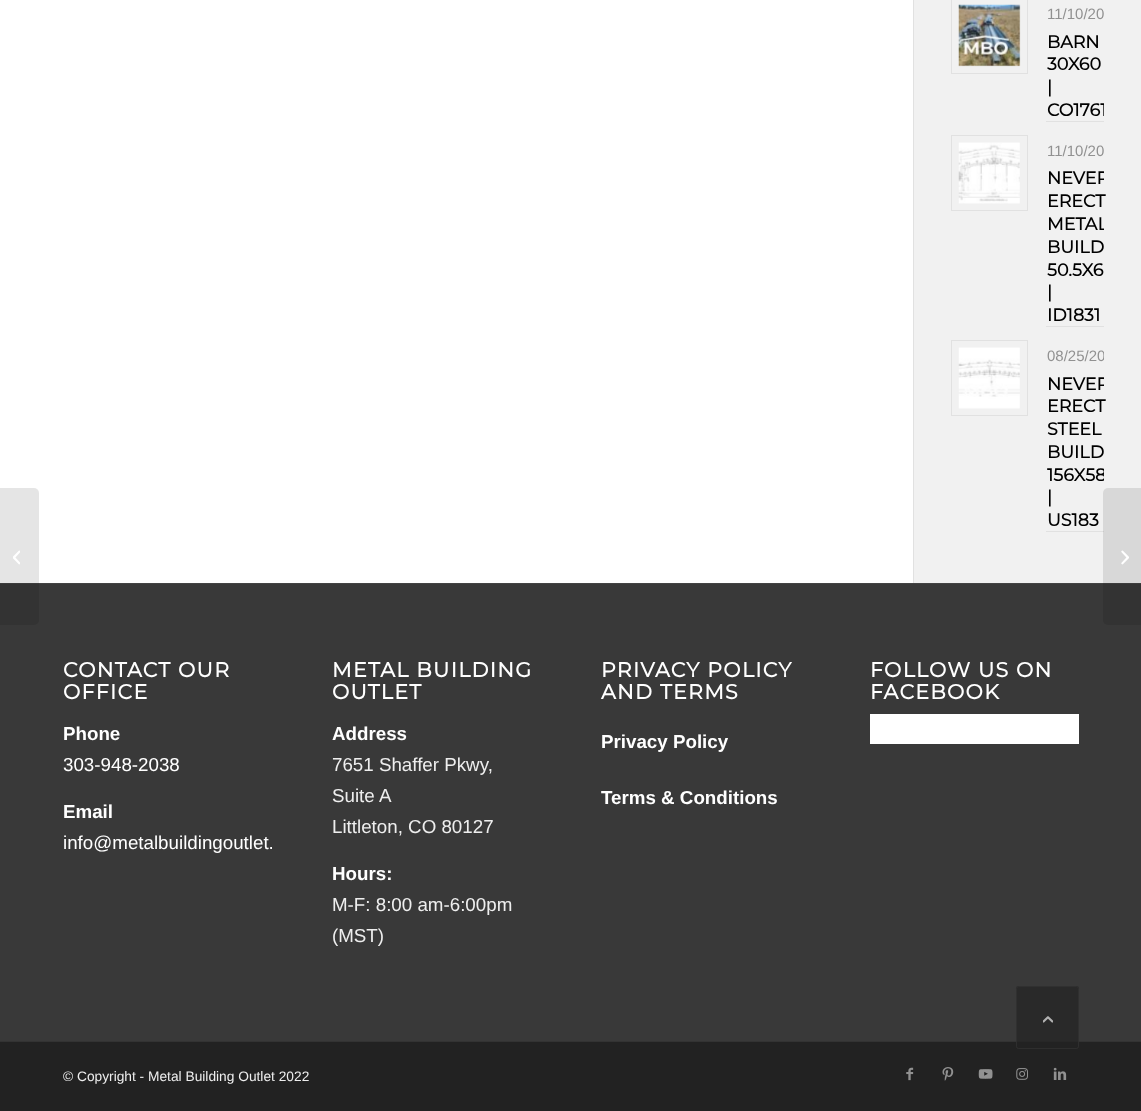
async function draw(canvas) {
  canvas.width = 1141;
  canvas.height = 1111;
  const ctx = canvas.getContext('2d');
  ctx.miterLimit = 4;
  ctx.fontKerning = 'normal';
  function label(s, x, y, font, color) {
    ctx.font = font;
    ctx.fillStyle = color;
    ctx.fillText(s, x, y);
  }
  function rect(x, y, w, h, color) {
    ctx.fillStyle = color;
    ctx.fillRect(x, y, w, h);
  }
  function roundedRect(x, y, w, h, r, color) {
    ctx.fillStyle = color;
    ctx.beginPath();
    ctx.roundRect(x, y, w, h, r);
    ctx.fill();
  }
  async function image(src, x, y, w, h) {
    const img = new Image();
    img.src = src;
    await img.decode();
    ctx.drawImage(img, x, y, w, h);
  }

  rect(0, 0, 1141, 1111, '#fff');
  rect(0, 584, 1141, 457, '#393939');
  rect(0, 583, 1141, 1, '#444');
  ctx.fillStyle = '#0000001a';
  ctx.beginPath();
  ctx.roundRect(0, 488, 39, 137, [0, 5, 5, 0]);
  ctx.fill();
  await image('assets/img1.png', 13, 550, 7, 15);
  rect(914, 0, 227, 583, '#f1f1f1');
  rect(913, 0, 1, 583, '#e1e1e1');
  ctx.strokeStyle = '#e1e1e1';
  ctx.strokeRect(951.5, -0.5, 76, 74);
  await image('assets/img2.png', 958, 4, 63, 63);
  rect(1046, 121, 58, 1, '#e1e1e1');
  label('11/10/20', 1047, 19, '15px Liberation Sans', '#919191');
  label('BARN', 1047, 48, 'bold 17.5px Montserrat', '#000');
  label('30X60', 1047, 70, 'bold 17.5px Montserrat', '#000');
  label('|', 1047, 93, 'bold 17.5px Montserrat', '#000');
  ctx.save();
  ctx.beginPath();
  ctx.rect(1046, 0, 58, 121);
  ctx.clip();
  label('CO1761', 1047, 116, 'bold 17.5px Montserrat', '#000');
  ctx.restore();
  ctx.strokeRect(951.5, 135.5, 76, 75);
  await image('assets/img3.png', 958, 142, 62, 62);
  rect(1046, 326, 58, 1, '#e1e1e1');
  label('11/10/20', 1047, 156, '15px Liberation Sans', '#919191');
  ctx.save();
  ctx.beginPath();
  ctx.rect(1046, 135, 58, 191);
  ctx.clip();
  label('NEVER', 1047, 184, 'bold 17.5px Montserrat', '#000');
  ctx.restore();
  label('ERECT', 1047, 207, 'bold 17.5px Montserrat', '#000');
  ctx.save();
  ctx.beginPath();
  ctx.rect(1046, 135, 58, 191);
  ctx.clip();
  label('METAL', 1047, 230, 'bold 17.5px Montserrat', '#000');
  ctx.restore();
  label('BUILD', 1047, 253, 'bold 17.5px Montserrat', '#000');
  label('50.5X6', 1047, 276, 'bold 17.5px Montserrat', '#000');
  label('|', 1047, 298, 'bold 17.5px Montserrat', '#000');
  label('ID1831', 1047, 321, 'bold 17.5px Montserrat', '#000');
  ctx.strokeRect(951.5, 340.5, 76, 75);
  await image('assets/img4.png', 958, 347, 62, 62);
  rect(1046, 531, 58, 1, '#e1e1e1');
  ctx.save();
  ctx.beginPath();
  ctx.rect(1046, 340, 58, 191);
  ctx.clip();
  label('08/25/20', 1047, 361, '15px Liberation Sans', '#919191');
  label('NEVER', 1047, 390, 'bold 17.5px Montserrat', '#000');
  ctx.restore();
  label('ERECT', 1047, 412, 'bold 17.5px Montserrat', '#000');
  label('STEEL', 1047, 435, 'bold 17.5px Montserrat', '#000');
  label('BUILD', 1047, 458, 'bold 17.5px Montserrat', '#000');
  ctx.save();
  ctx.beginPath();
  ctx.rect(1046, 340, 58, 191);
  ctx.clip();
  label('156X58', 1047, 481, 'bold 17.5px Montserrat', '#000');
  ctx.restore();
  label('|', 1047, 503, 'bold 17.5px Montserrat', '#000');
  label('US183', 1047, 526, 'bold 17.5px Montserrat', '#000');
  ctx.letterSpacing = '1.25px';
  label('CONTACT OUR', 63, 677, 'bold 20.6px Montserrat', '#fff');
  label('OFFICE', 63, 699, 'bold 20.6px Montserrat', '#fff');
  ctx.letterSpacing = '0px';
  label('Phone', 63, 740, 'bold 18.75px Liberation Sans', '#fff');
  label('303-948-2038', 63, 771, '18.75px Liberation Sans', '#fff');
  label('Email', 63, 818, 'bold 18.75px Liberation Sans', '#fff');
  label('info@metalbuildingoutlet.', 63, 849, '18.75px Liberation Sans', '#fff');
  ctx.letterSpacing = '1.25px';
  label('METAL BUILDING', 332, 677, 'bold 20.6px Montserrat', '#fff');
  label('OUTLET', 332, 699, 'bold 20.6px Montserrat', '#fff');
  ctx.letterSpacing = '0px';
  label('Address', 332, 740, 'bold 18.75px Liberation Sans', '#fff');
  label('7651 Shaffer Pkwy,', 332, 771, '18.75px Liberation Sans', '#eee');
  label('Suite A', 332, 802, '18.75px Liberation Sans', '#eee');
  label('Littleton, CO 80127', 332, 833, '18.75px Liberation Sans', '#eee');
  label('Hours:', 332, 880, 'bold 18.75px Liberation Sans', '#fff');
  label('M-F: 8:00 am-6:00pm', 332, 911, '18.75px Liberation Sans', '#eee');
  label('(MST)', 332, 942, '18.75px Liberation Sans', '#eee');
  ctx.letterSpacing = '1.25px';
  label('PRIVACY POLICY', 601, 677, 'bold 20.6px Montserrat', '#fff');
  label('AND TERMS', 601, 699, 'bold 20.6px Montserrat', '#fff');
  ctx.letterSpacing = '0px';
  label('Privacy Policy', 601, 748, 'bold 18.75px Liberation Sans', '#fff');
  label('Terms & Conditions', 601, 804, 'bold 18.75px Liberation Sans', '#fff');
  ctx.letterSpacing = '1.25px';
  label('FOLLOW US ON', 870, 677, 'bold 20.6px Montserrat', '#fff');
  label('FACEBOOK', 870, 699, 'bold 20.6px Montserrat', '#fff');
  rect(870, 714, 209, 30, '#fff');
  rect(0, 1042, 1141, 69, '#222');
  rect(0, 1041, 1141, 1, '#333');
  ctx.letterSpacing = '0px';
  label('© Copyright - Metal Building Outlet 2022', 63, 1081, '13.75px Liberation Sans', '#eee');
  await image('assets/img5.png', 906, 1067, 8, 14);
  await image('assets/img6.png', 942, 1067, 12, 14);
  await image('assets/img7.png', 978, 1069, 15, 10);
  await image('assets/img8.png', 1016, 1068, 12, 12);
  await image('assets/img9.png', 1053, 1067, 14, 13);
  ctx.fillStyle = '#0000001a';
  ctx.beginPath();
  ctx.roundRect(1103, 488, 38, 137, [5, 0, 0, 5]);
  ctx.fill();
  await image('assets/img10.png', 1121, 550, 8, 15);
  roundedRect(1016, 986, 63, 63, 2.5, '#222222b3');
  ctx.beginPath();
  ctx.roundRect(1016.5, 986.5, 62, 62, 2);
  ctx.strokeStyle = '#333333b3';
  ctx.stroke();
  await image('assets/img11.png', 1043, 1016, 10, 7);
}

draw(document.querySelector('canvas'));
